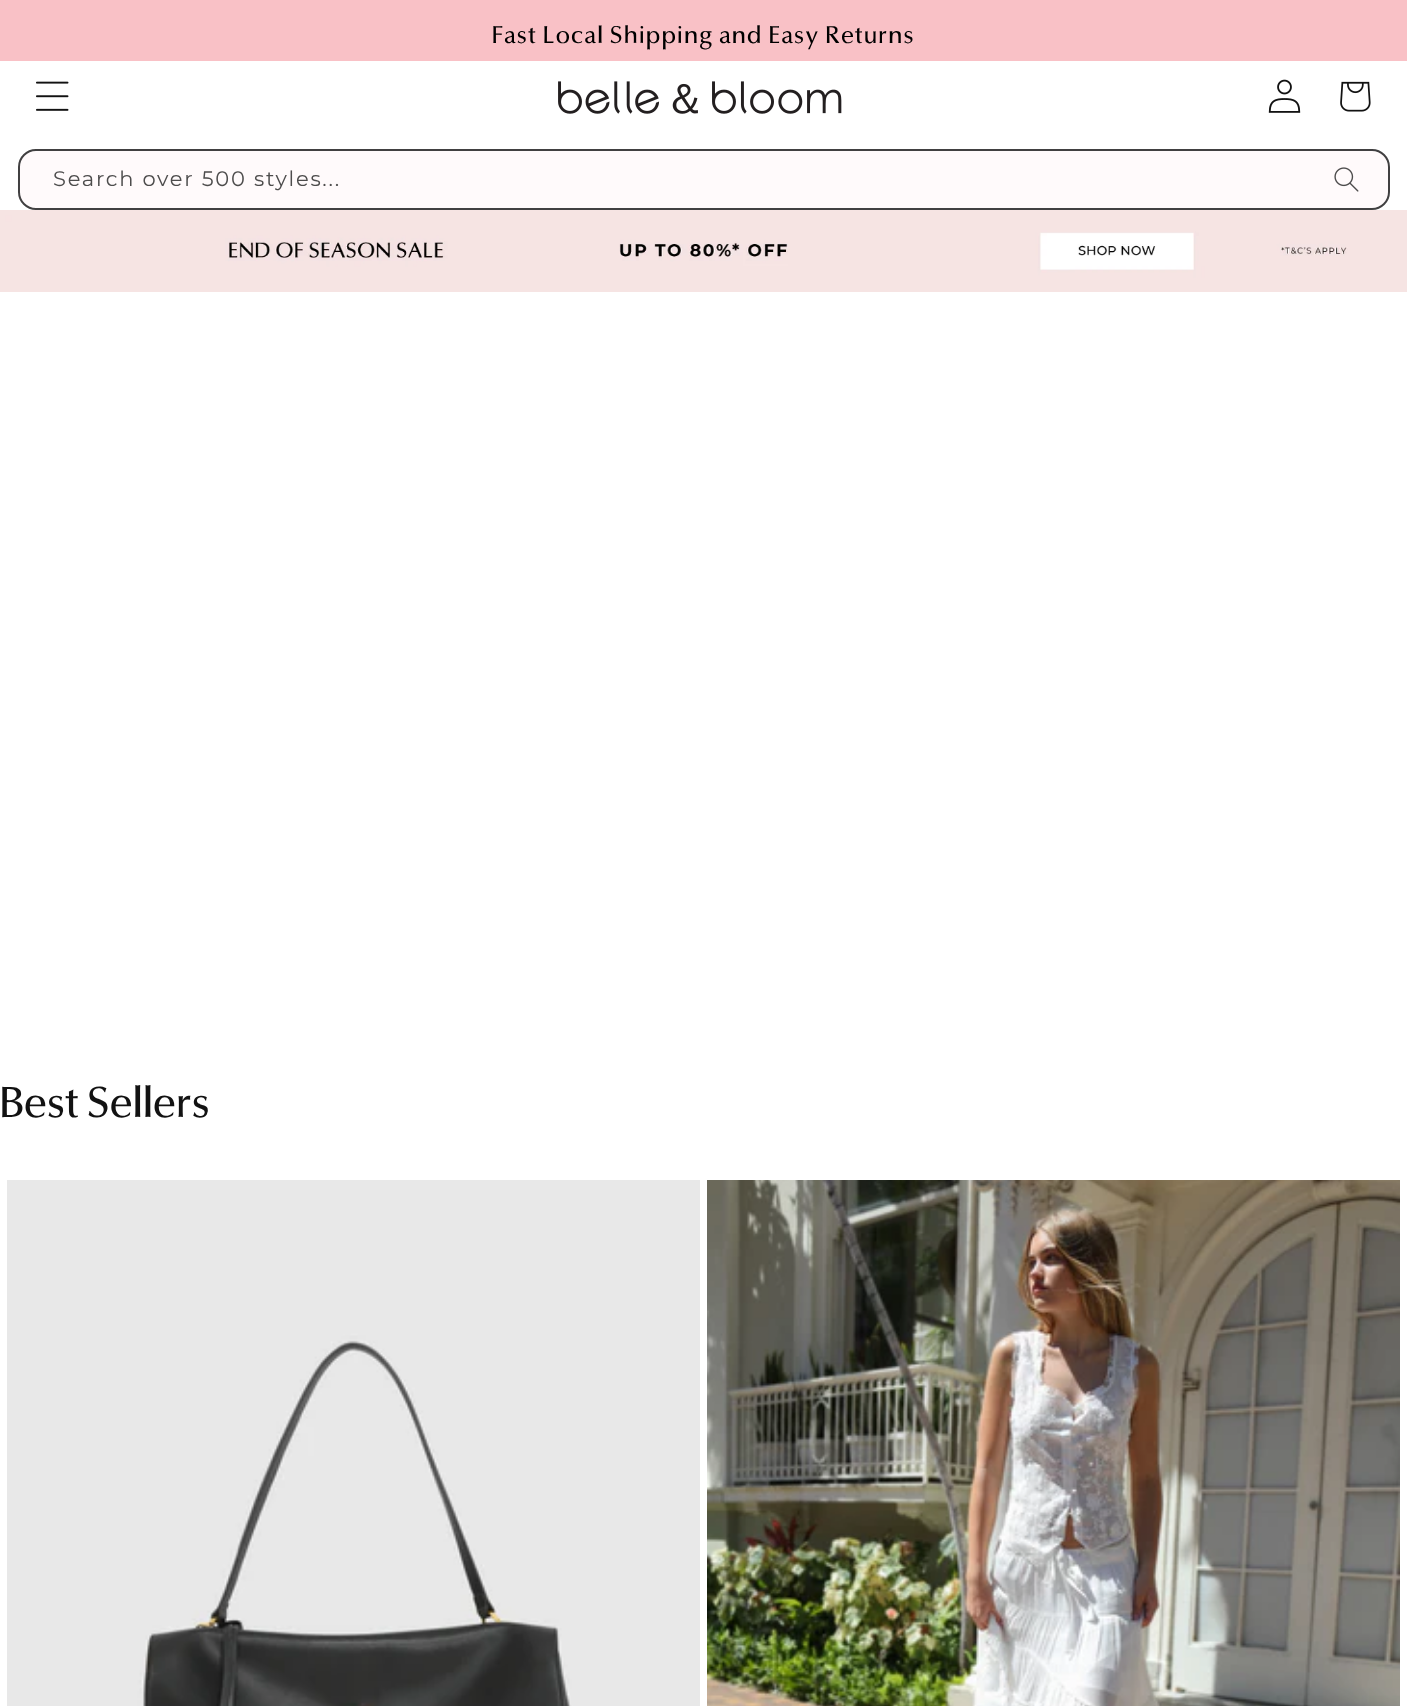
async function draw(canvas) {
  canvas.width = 1407;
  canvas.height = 1706;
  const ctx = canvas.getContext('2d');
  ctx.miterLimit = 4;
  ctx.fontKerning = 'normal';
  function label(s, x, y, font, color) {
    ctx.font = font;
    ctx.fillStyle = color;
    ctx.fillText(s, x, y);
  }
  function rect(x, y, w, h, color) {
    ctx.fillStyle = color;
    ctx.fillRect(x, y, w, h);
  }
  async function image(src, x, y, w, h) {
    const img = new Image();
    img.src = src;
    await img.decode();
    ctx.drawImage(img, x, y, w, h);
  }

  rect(0, 0, 1407, 1706, '#fff');
  rect(0, 0, 1407, 61, '#f9c1c6');
  ctx.letterSpacing = '1.75px';
  label('Fast Local Shipping and Easy Returns', 492, 43, '500 24.5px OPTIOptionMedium', '#000');
  await image('assets/img1.png', 36, 81, 33, 30);
  await image('assets/img2.png', 558, 81, 284, 33);
  await image('assets/img3.png', 1268, 79, 33, 34);
  await image('assets/img4.png', 1340, 81, 31, 31);
  ctx.fillStyle = '#fffafb';
  ctx.beginPath();
  ctx.roundRect(19, 150, 1370, 59, 17);
  ctx.fill();
  ctx.strokeStyle = '#414041';
  ctx.lineWidth = 2;
  ctx.stroke();
  label('Search over 500 styles...', 53, 186, '21px Montserrat', '#4d4c4c');
  await image('assets/img5.png', 1334, 167, 25, 25);
  await image('assets/img6.png', 0, 210, 1407, 82);
  ctx.letterSpacing = '1px';
  label('Best Sellers', 0, 1117, '500 43.75px OPTIOptionMedium', '#121212');
  await image('assets/img7.png', 7, 1180, 693, 526);
  await image('assets/img8.png', 707, 1180, 693, 526);
}

draw(document.querySelector('canvas'));
